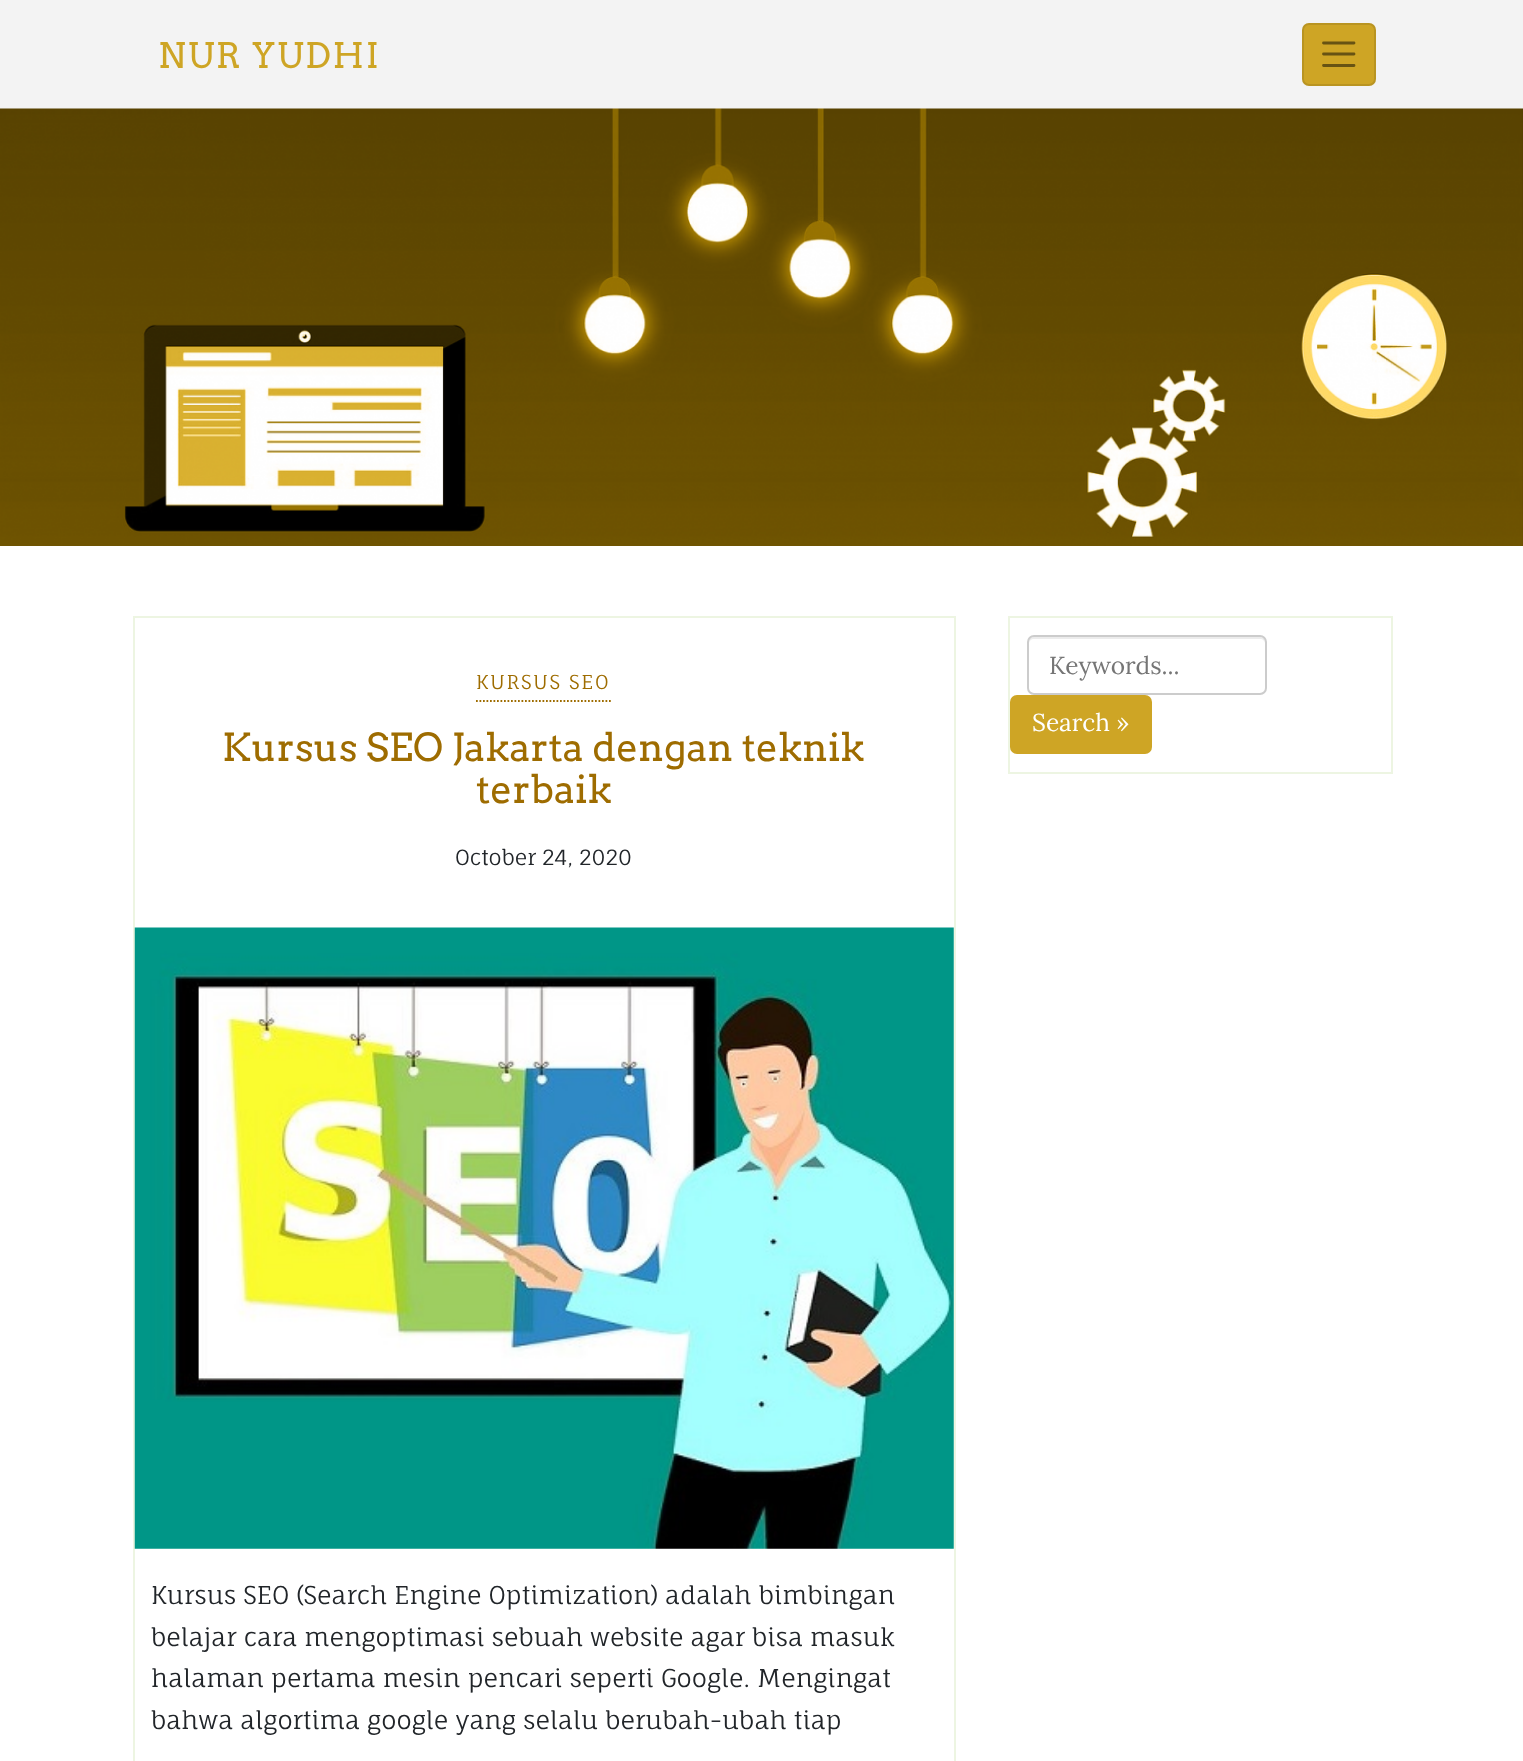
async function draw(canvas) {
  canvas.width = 1523;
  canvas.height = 1761;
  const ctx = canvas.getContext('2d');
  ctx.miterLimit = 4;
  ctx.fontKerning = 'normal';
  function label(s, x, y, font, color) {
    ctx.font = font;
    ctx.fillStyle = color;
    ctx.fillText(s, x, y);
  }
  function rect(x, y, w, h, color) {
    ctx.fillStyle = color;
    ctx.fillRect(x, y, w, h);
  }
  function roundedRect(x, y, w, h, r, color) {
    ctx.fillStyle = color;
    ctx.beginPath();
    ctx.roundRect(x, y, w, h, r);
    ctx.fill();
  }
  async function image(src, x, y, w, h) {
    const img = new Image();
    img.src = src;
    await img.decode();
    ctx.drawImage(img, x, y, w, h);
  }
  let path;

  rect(0, 0, 1523, 1761, '#fff');
  rect(0, 0, 1523, 109, '#f3f3f3');
  ctx.letterSpacing = '1.75px';
  label('NUR YUDHI', 158, 68, '35px Arvo', '#cea525');
  roundedRect(1302, 23, 74, 63, 7, '#cea525');
  ctx.beginPath();
  ctx.roundRect(1303, 24, 72, 61, 6);
  ctx.strokeStyle = '#0000001a';
  ctx.lineWidth = 2;
  ctx.stroke();
  path = new Path2D('M1323.5 43H1354M1323.5 54H1354M1323.5 65.5H1354');
  ctx.strokeStyle = '#675313';
  ctx.lineWidth = 2.8;
  ctx.lineCap = 'round';
  ctx.stroke(path);
  await image('assets/img1.png', 0, 108, 1523, 438);
  ctx.strokeStyle = '#edf5e2';
  ctx.lineWidth = 2;
  ctx.strokeRect(134, 617, 821, 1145);
  label('KURSUS SEO', 476, 689, '19.25px Fauna One', '#9e6c00');
  path = new Path2D('M476 701H611');
  ctx.strokeStyle = '#9e6c00';
  ctx.lineWidth = 1.8;
  ctx.lineCap = 'butt';
  ctx.setLineDash([1.75, 1.75]);
  ctx.stroke(path);
  ctx.letterSpacing = '0px';
  label('Kursus SEO Jakarta dengan teknik', 222, 761, '38.5px Arvo', '#9e6c00');
  label('terbaik', 476, 803, '38.5px Arvo', '#9e6c00');
  label('October 24, 2020', 455, 865, '21px Fauna One', '#212529');
  await image('assets/img2.png', 134, 927, 820, 622);
  label('Kursus SEO (Search Engine Optimization) adalah bimbingan', 151, 1604, '24.5px Fauna One', '#212529');
  label('belajar cara mengoptimasi sebuah website agar bisa masuk', 151, 1646, '24.5px Fauna One', '#212529');
  label('halaman pertama mesin pencari seperti Google. Mengingat', 151, 1687, '24.5px Fauna One', '#212529');
  label('bahwa algortima google yang selalu berubah-ubah tiap', 151, 1729, '24.5px Fauna One', '#212529');
  ctx.strokeStyle = '#edf5e2';
  ctx.lineWidth = 2;
  ctx.setLineDash([]);
  ctx.strokeRect(1009, 617, 383, 156);
  ctx.fillStyle = '#ececec';
  path = new Path2D('M1034 639H1260C1263 639 1265 641 1265 644C1265 641 1265 638 1261 637H1033C1029 638 1029 641 1029 644C1029 641 1031 639 1034 639Z');
  ctx.fill(path);
  ctx.beginPath();
  ctx.roundRect(1028, 636, 238, 58, 6);
  ctx.strokeStyle = '#ccc';
  ctx.stroke();
  label('Keywords...', 1049, 674, '24.5px Lora', '#757575');
  roundedRect(1010, 695, 142, 59, 7, '#cea525');
  label('Search »', 1032, 731, '24.5px Lora', '#fff');
}

draw(document.querySelector('canvas'));
